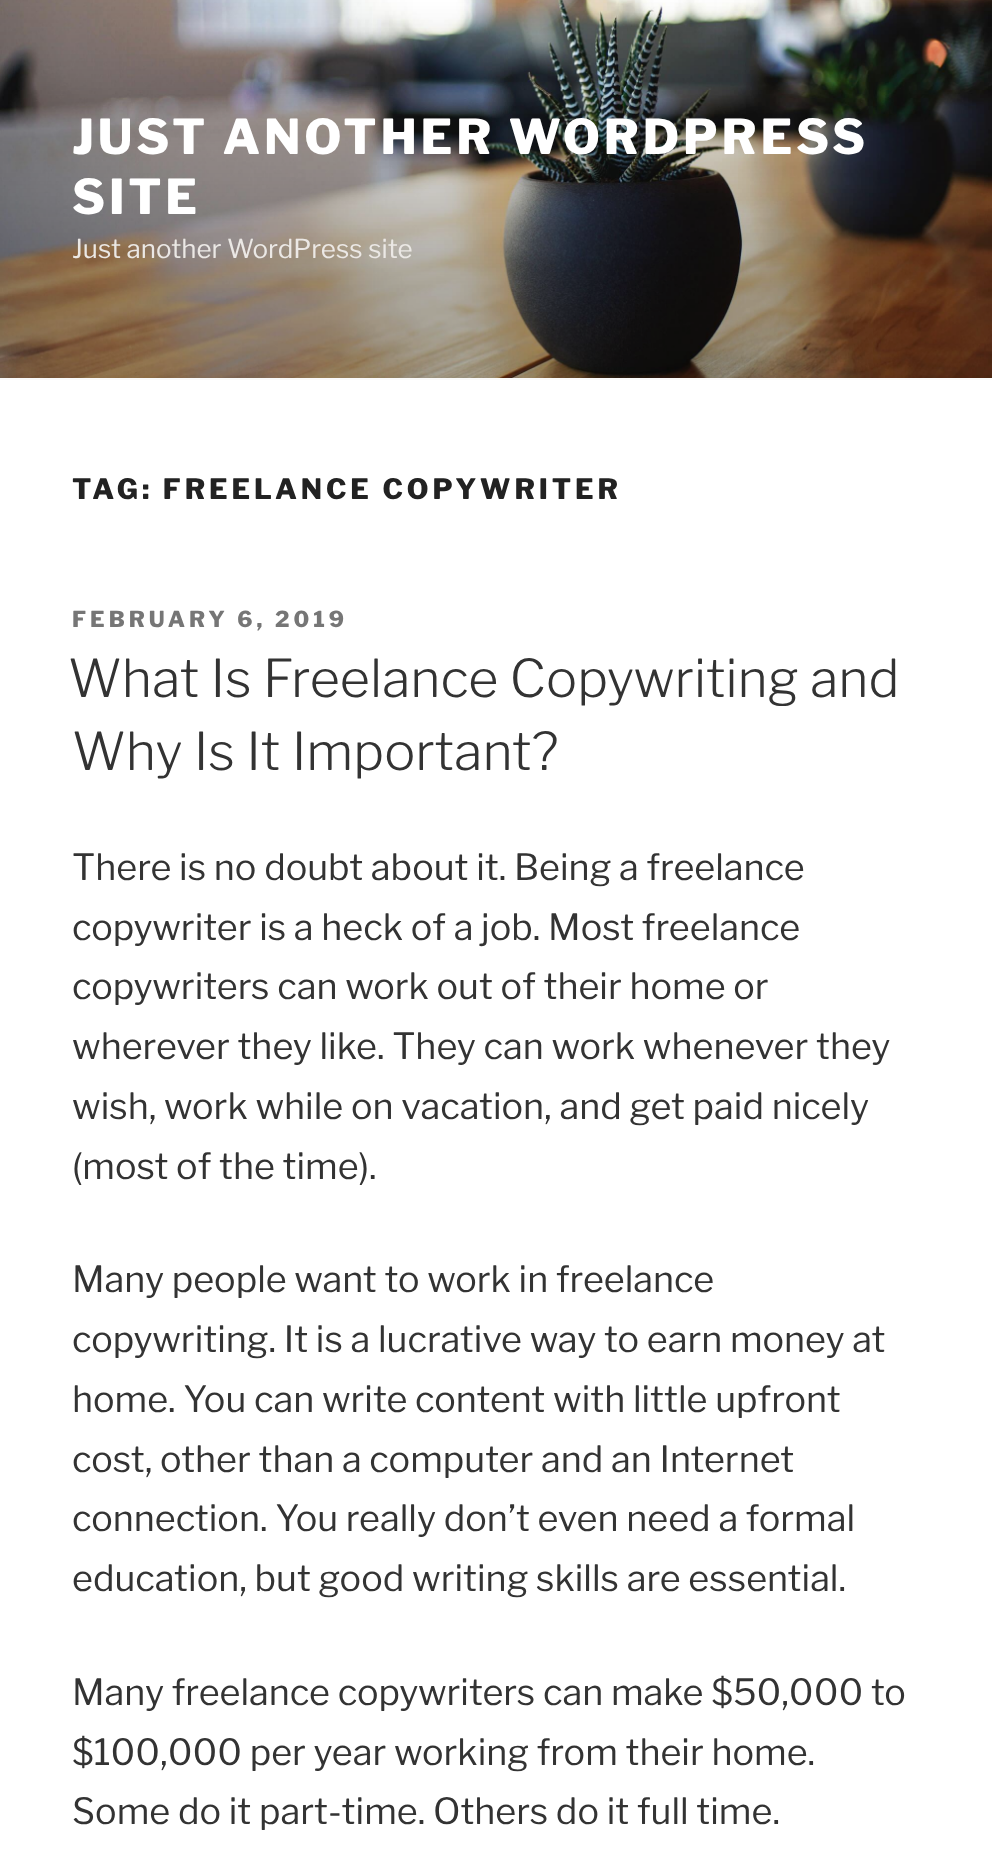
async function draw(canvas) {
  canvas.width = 992;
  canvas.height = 1859;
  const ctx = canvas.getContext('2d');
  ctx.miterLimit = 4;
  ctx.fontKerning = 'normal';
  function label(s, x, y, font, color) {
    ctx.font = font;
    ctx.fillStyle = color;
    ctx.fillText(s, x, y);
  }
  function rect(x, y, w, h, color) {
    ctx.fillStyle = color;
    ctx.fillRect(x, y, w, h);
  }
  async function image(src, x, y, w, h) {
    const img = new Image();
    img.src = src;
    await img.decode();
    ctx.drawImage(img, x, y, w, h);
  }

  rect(0, 0, 992, 1859, '#fff');
  rect(0, 378, 992, 2, '#fafafa');
  await image('assets/img1.png', 0, 0, 992, 378);
  ctx.letterSpacing = '3.8px';
  label('JUST ANOTHER WORDPRESS', 72, 154, '800 48px Libre Franklin', '#fff');
  label('SITE', 72, 214, '800 48px Libre Franklin', '#fff');
  ctx.letterSpacing = '0px';
  label('Just another WordPress site', 72, 258, '26px Libre Franklin', '#ebe8e5');
  ctx.letterSpacing = '3.9px';
  label('TAG: FREELANCE COPYWRITER', 72, 499, '800 28px Libre Franklin', '#222');
  ctx.letterSpacing = '4px';
  label('FEBRUARY 6, 2019', 72, 627, '800 22px Libre Franklin', '#767676');
  ctx.letterSpacing = '0px';
  label('What Is Freelance Copywriting and', 68, 697, '300 52px Libre Franklin', '#333');
  label('Why Is It Important?', 72, 770, '300 52px Libre Franklin', '#333');
  label('There is no doubt about it. Being a freelance', 72, 880, '36px Libre Franklin', '#333');
  label('copywriter is a heck of a job. Most freelance', 72, 940, '36px Libre Franklin', '#333');
  label('copywriters can work out of their home or', 72, 999, '36px Libre Franklin', '#333');
  label('wherever they like. They can work whenever they', 72, 1059, '36px Libre Franklin', '#333');
  label('wish, work while on vacation, and get paid nicely', 72, 1119, '36px Libre Franklin', '#333');
  label('(most of the time).', 72, 1179, '36px Libre Franklin', '#333');
  label('Many people want to work in freelance', 72, 1292, '36px Libre Franklin', '#333');
  label('copywriting. It is a lucrative way to earn money at', 72, 1352, '36px Libre Franklin', '#333');
  label('home. You can write content with little upfront', 72, 1412, '36px Libre Franklin', '#333');
  label('cost, other than a computer and an Internet', 72, 1472, '36px Libre Franklin', '#333');
  label('connection. You really don’t even need a formal', 72, 1531, '36px Libre Franklin', '#333');
  label('education, but good writing skills are essential.', 72, 1591, '36px Libre Franklin', '#333');
  label('Many freelance copywriters can make $50,000 to', 72, 1705, '36px Libre Franklin', '#333');
  label('$100,000 per year working from their home.', 72, 1765, '36px Libre Franklin', '#333');
  label('Some do it part-time. Others do it full time.', 72, 1824, '36px Libre Franklin', '#333');
}

draw(document.querySelector('canvas'));
